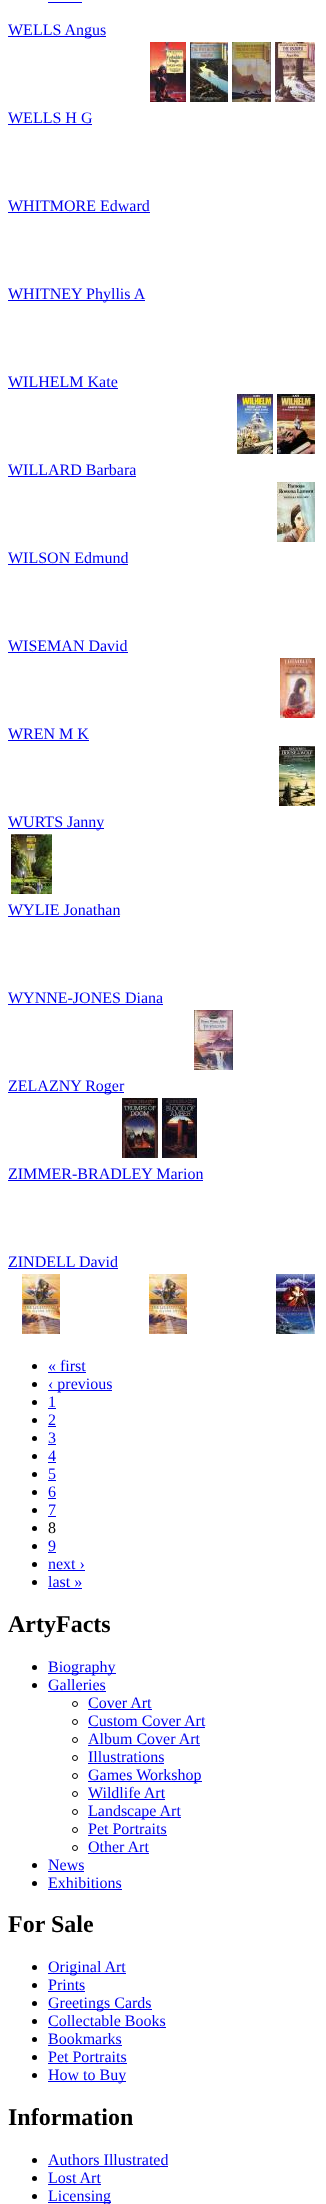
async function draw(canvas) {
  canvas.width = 326;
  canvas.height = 2204;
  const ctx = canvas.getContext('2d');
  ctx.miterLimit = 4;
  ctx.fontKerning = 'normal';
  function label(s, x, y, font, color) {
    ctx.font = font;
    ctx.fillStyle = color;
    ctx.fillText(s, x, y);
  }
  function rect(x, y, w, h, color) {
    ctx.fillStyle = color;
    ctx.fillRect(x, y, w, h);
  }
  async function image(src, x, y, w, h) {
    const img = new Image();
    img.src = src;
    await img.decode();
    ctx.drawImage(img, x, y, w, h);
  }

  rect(0, 0, 326, 2204, '#fff');
  rect(48, 2, 34, 1, '#00e');
  rect(8, 36, 98, 1, '#00e');
  label('WELLS Angus', 8, 35, '16px Liberation Serif', '#00e');
  await image('assets/img1.png', 150, 42, 36, 60);
  await image('assets/img2.png', 190, 42, 38, 60);
  await image('assets/img3.png', 232, 42, 39, 60);
  await image('assets/img4.png', 275, 42, 40, 60);
  label('WELLS H G', 8, 123, '16px Liberation Serif', '#00e');
  rect(8, 124, 84, 1, '#00e');
  label('WHITMORE Edward', 8, 211, '16px Liberation Serif', '#00e');
  rect(8, 212, 142, 1, '#00e');
  rect(8, 300, 137, 1, '#00e');
  label('WHITNEY Phyllis A', 8, 299, '16px Liberation Serif', '#00e');
  label('WILHELM Kate', 8, 387, '16px Liberation Serif', '#00e');
  rect(8, 388, 110, 1, '#00e');
  await image('assets/img5.png', 237, 394, 36, 60);
  await image('assets/img6.png', 277, 394, 38, 60);
  label('WILLARD Barbara', 8, 475, '16px Liberation Serif', '#00e');
  rect(8, 476, 128, 1, '#00e');
  await image('assets/img7.png', 277, 482, 38, 60);
  label('WILSON Edmund', 8, 563, '16px Liberation Serif', '#00e');
  rect(8, 564, 120, 1, '#00e');
  label('WISEMAN David', 8, 651, '16px Liberation Serif', '#00e');
  rect(8, 652, 120, 1, '#00e');
  await image('assets/img8.png', 280, 658, 35, 60);
  label('WREN M K', 8, 739, '16px Liberation Serif', '#00e');
  rect(8, 740, 81, 1, '#00e');
  await image('assets/img9.png', 279, 746, 36, 60);
  rect(8, 828, 96, 1, '#00e');
  label('WURTS Janny', 8, 827, '16px Liberation Serif', '#00e');
  await image('assets/img10.png', 11, 834, 41, 60);
  label('WYLIE Jonathan', 8, 915, '16px Liberation Serif', '#00e');
  rect(8, 916, 112, 1, '#00e');
  label('WYNNE-JONES Diana', 8, 1003, '16px Liberation Serif', '#00e');
  rect(8, 1004, 155, 1, '#00e');
  await image('assets/img11.png', 194, 1010, 39, 60);
  rect(8, 1092, 116, 1, '#00e');
  label('ZELAZNY Roger', 8, 1091, '16px Liberation Serif', '#00e');
  await image('assets/img12.png', 122, 1098, 36, 60);
  await image('assets/img13.png', 162, 1098, 35, 60);
  label('ZIMMER-BRADLEY Marion', 8, 1179, '16px Liberation Serif', '#00e');
  rect(8, 1180, 195, 1, '#00e');
  label('ZINDELL David', 8, 1267, '16px Liberation Serif', '#00e');
  rect(8, 1268, 110, 1, '#00e');
  await image('assets/img14.png', 22, 1274, 38, 60);
  await image('assets/img14.png', 149, 1274, 38, 60);
  await image('assets/img15.png', 276, 1274, 39, 60);
  ctx.fillStyle = '#000';
  ctx.beginPath();
  ctx.arc(34.5, 1366.5, 2.5, 0, 2 * Math.PI);
  ctx.fill();
  label('« first', 48, 1371, '16px Liberation Serif', '#00e');
  rect(48, 1372, 38, 1, '#00e');
  ctx.fillStyle = '#000';
  ctx.beginPath();
  ctx.arc(34.5, 1384.5, 2.5, 0, 2 * Math.PI);
  ctx.fill();
  rect(48, 1390, 64, 1, '#00e');
  label('‹ previous', 48, 1389, '16px Liberation Serif', '#00e');
  ctx.fillStyle = '#000';
  ctx.beginPath();
  ctx.arc(34.5, 1402.5, 2.5, 0, 2 * Math.PI);
  ctx.fill();
  label('1', 48, 1407, '16px Liberation Serif', '#00e');
  rect(48, 1408, 8, 1, '#00e');
  ctx.fillStyle = '#000';
  ctx.beginPath();
  ctx.arc(34.5, 1420.5, 2.5, 0, 2 * Math.PI);
  ctx.fill();
  label('2', 48, 1425, '16px Liberation Serif', '#00e');
  rect(48, 1426, 8, 1, '#00e');
  ctx.fillStyle = '#000';
  ctx.beginPath();
  ctx.arc(34.5, 1438.5, 2.5, 0, 2 * Math.PI);
  ctx.fill();
  label('3', 48, 1443, '16px Liberation Serif', '#00e');
  rect(48, 1444, 8, 1, '#00e');
  ctx.fillStyle = '#000';
  ctx.beginPath();
  ctx.arc(34.5, 1456.5, 2.5, 0, 2 * Math.PI);
  ctx.fill();
  label('4', 48, 1461, '16px Liberation Serif', '#00e');
  rect(48, 1462, 8, 1, '#00e');
  ctx.fillStyle = '#000';
  ctx.beginPath();
  ctx.arc(34.5, 1474.5, 2.5, 0, 2 * Math.PI);
  ctx.fill();
  label('5', 48, 1479, '16px Liberation Serif', '#00e');
  rect(48, 1480, 8, 1, '#00e');
  ctx.fillStyle = '#000';
  ctx.beginPath();
  ctx.arc(34.5, 1492.5, 2.5, 0, 2 * Math.PI);
  ctx.fill();
  label('6', 48, 1497, '16px Liberation Serif', '#00e');
  rect(48, 1498, 8, 1, '#00e');
  ctx.fillStyle = '#000';
  ctx.beginPath();
  ctx.arc(34.5, 1510.5, 2.5, 0, 2 * Math.PI);
  ctx.fill();
  label('7', 48, 1515, '16px Liberation Serif', '#00e');
  rect(48, 1516, 8, 1, '#00e');
  ctx.fillStyle = '#000';
  ctx.beginPath();
  ctx.arc(34.5, 1528.5, 2.5, 0, 2 * Math.PI);
  ctx.fill();
  label('8', 48, 1533, '16px Liberation Serif', '#000');
  ctx.beginPath();
  ctx.arc(34.5, 1546.5, 2.5, 0, 2 * Math.PI);
  ctx.fill();
  label('9', 48, 1551, '16px Liberation Serif', '#00e');
  rect(48, 1552, 8, 1, '#00e');
  ctx.fillStyle = '#000';
  ctx.beginPath();
  ctx.arc(34.5, 1564.5, 2.5, 0, 2 * Math.PI);
  ctx.fill();
  label('next ›', 48, 1569, '16px Liberation Serif', '#00e');
  rect(48, 1570, 37, 1, '#00e');
  ctx.fillStyle = '#000';
  ctx.beginPath();
  ctx.arc(34.5, 1582.5, 2.5, 0, 2 * Math.PI);
  ctx.fill();
  label('last »', 48, 1587, '16px Liberation Serif', '#00e');
  rect(48, 1588, 34, 1, '#00e');
  label('ArtyFacts', 8, 1632, 'bold 24px Liberation Serif', '#000');
  ctx.beginPath();
  ctx.arc(34.5, 1667.5, 2.5, 0, 2 * Math.PI);
  ctx.fill();
  rect(48, 1673, 68, 1, '#00e');
  label('Biography', 48, 1672, '16px Liberation Serif', '#00e');
  ctx.fillStyle = '#000';
  ctx.beginPath();
  ctx.arc(34.5, 1685.5, 2.5, 0, 2 * Math.PI);
  ctx.fill();
  label('Galleries', 48, 1690, '16px Liberation Serif', '#00e');
  rect(48, 1691, 58, 1, '#00e');
  ctx.beginPath();
  ctx.arc(75, 1704, 2.5, 0, 2 * Math.PI);
  ctx.strokeStyle = '#000';
  ctx.stroke();
  label('Cover Art', 88, 1708, '16px Liberation Serif', '#00e');
  rect(88, 1709, 64, 1, '#00e');
  ctx.beginPath();
  ctx.arc(75, 1722, 2.5, 0, 2 * Math.PI);
  ctx.stroke();
  label('Custom Cover Art', 88, 1726, '16px Liberation Serif', '#00e');
  rect(88, 1727, 117, 1, '#00e');
  ctx.beginPath();
  ctx.arc(75, 1740, 2.5, 0, 2 * Math.PI);
  ctx.stroke();
  label('Album Cover Art', 88, 1744, '16px Liberation Serif', '#00e');
  rect(88, 1745, 112, 1, '#00e');
  ctx.beginPath();
  ctx.arc(75, 1758, 2.5, 0, 2 * Math.PI);
  ctx.stroke();
  label('Illustrations', 88, 1762, '16px Liberation Serif', '#00e');
  rect(88, 1763, 76, 1, '#00e');
  ctx.beginPath();
  ctx.arc(75, 1776, 2.5, 0, 2 * Math.PI);
  ctx.stroke();
  rect(88, 1781, 114, 1, '#00e');
  label('Games Workshop', 88, 1780, '16px Liberation Serif', '#00e');
  ctx.beginPath();
  ctx.arc(75, 1794, 2.5, 0, 2 * Math.PI);
  ctx.stroke();
  label('Wildlife Art', 88, 1798, '16px Liberation Serif', '#00e');
  rect(88, 1799, 77, 1, '#00e');
  ctx.beginPath();
  ctx.arc(75, 1812, 2.5, 0, 2 * Math.PI);
  ctx.stroke();
  rect(88, 1817, 93, 1, '#00e');
  label('Landscape Art', 88, 1816, '16px Liberation Serif', '#00e');
  ctx.beginPath();
  ctx.arc(75, 1830, 2.5, 0, 2 * Math.PI);
  ctx.stroke();
  label('Pet Portraits', 88, 1834, '16px Liberation Serif', '#00e');
  rect(88, 1835, 79, 1, '#00e');
  ctx.beginPath();
  ctx.arc(75, 1848, 2.5, 0, 2 * Math.PI);
  ctx.stroke();
  label('Other Art', 88, 1852, '16px Liberation Serif', '#00e');
  rect(88, 1853, 61, 1, '#00e');
  ctx.fillStyle = '#000';
  ctx.beginPath();
  ctx.arc(34.5, 1865.5, 2.5, 0, 2 * Math.PI);
  ctx.fill();
  label('News', 48, 1870, '16px Liberation Serif', '#00e');
  rect(48, 1871, 36, 1, '#00e');
  ctx.fillStyle = '#000';
  ctx.beginPath();
  ctx.arc(34.5, 1883.5, 2.5, 0, 2 * Math.PI);
  ctx.fill();
  label('Exhibitions', 48, 1888, '16px Liberation Serif', '#00e');
  rect(48, 1889, 74, 1, '#00e');
  label('For Sale', 8, 1932, 'bold 24px Liberation Serif', '#000');
  ctx.beginPath();
  ctx.arc(34.5, 1967.5, 2.5, 0, 2 * Math.PI);
  ctx.fill();
  rect(48, 1973, 78, 1, '#00e');
  label('Original Art', 48, 1972, '16px Liberation Serif', '#00e');
  ctx.fillStyle = '#000';
  ctx.beginPath();
  ctx.arc(34.5, 1985.5, 2.5, 0, 2 * Math.PI);
  ctx.fill();
  label('Prints', 48, 1990, '16px Liberation Serif', '#00e');
  rect(48, 1991, 37, 1, '#00e');
  ctx.fillStyle = '#000';
  ctx.beginPath();
  ctx.arc(34.5, 2003.5, 2.5, 0, 2 * Math.PI);
  ctx.fill();
  rect(48, 2009, 104, 1, '#00e');
  label('Greetings Cards', 48, 2008, '16px Liberation Serif', '#00e');
  ctx.fillStyle = '#000';
  ctx.beginPath();
  ctx.arc(34.5, 2021.5, 2.5, 0, 2 * Math.PI);
  ctx.fill();
  label('Collectable Books', 48, 2026, '16px Liberation Serif', '#00e');
  rect(48, 2027, 118, 1, '#00e');
  ctx.fillStyle = '#000';
  ctx.beginPath();
  ctx.arc(34.5, 2039.5, 2.5, 0, 2 * Math.PI);
  ctx.fill();
  label('Bookmarks', 48, 2044, '16px Liberation Serif', '#00e');
  rect(48, 2045, 74, 1, '#00e');
  ctx.fillStyle = '#000';
  ctx.beginPath();
  ctx.arc(34.5, 2057.5, 2.5, 0, 2 * Math.PI);
  ctx.fill();
  label('Pet Portraits', 48, 2062, '16px Liberation Serif', '#00e');
  rect(48, 2063, 79, 1, '#00e');
  ctx.fillStyle = '#000';
  ctx.beginPath();
  ctx.arc(34.5, 2075.5, 2.5, 0, 2 * Math.PI);
  ctx.fill();
  rect(48, 2081, 78, 1, '#00e');
  label('How to Buy', 48, 2080, '16px Liberation Serif', '#00e');
  label('Information', 8, 2125, 'bold 24px Liberation Serif', '#000');
  ctx.beginPath();
  ctx.arc(34.5, 2160.5, 2.5, 0, 2 * Math.PI);
  ctx.fill();
  label('Authors Illustrated', 48, 2165, '16px Liberation Serif', '#00e');
  rect(48, 2166, 120, 1, '#00e');
  ctx.fillStyle = '#000';
  ctx.beginPath();
  ctx.arc(34.5, 2178.5, 2.5, 0, 2 * Math.PI);
  ctx.fill();
  label('Lost Art', 48, 2183, '16px Liberation Serif', '#00e');
  rect(48, 2184, 53, 1, '#00e');
  ctx.fillStyle = '#000';
  ctx.beginPath();
  ctx.arc(34.5, 2196.5, 2.5, 0, 2 * Math.PI);
  ctx.fill();
  rect(48, 2202, 63, 1, '#00e');
  label('Licensing', 48, 2201, '16px Liberation Serif', '#00e');
}

draw(document.querySelector('canvas'));
